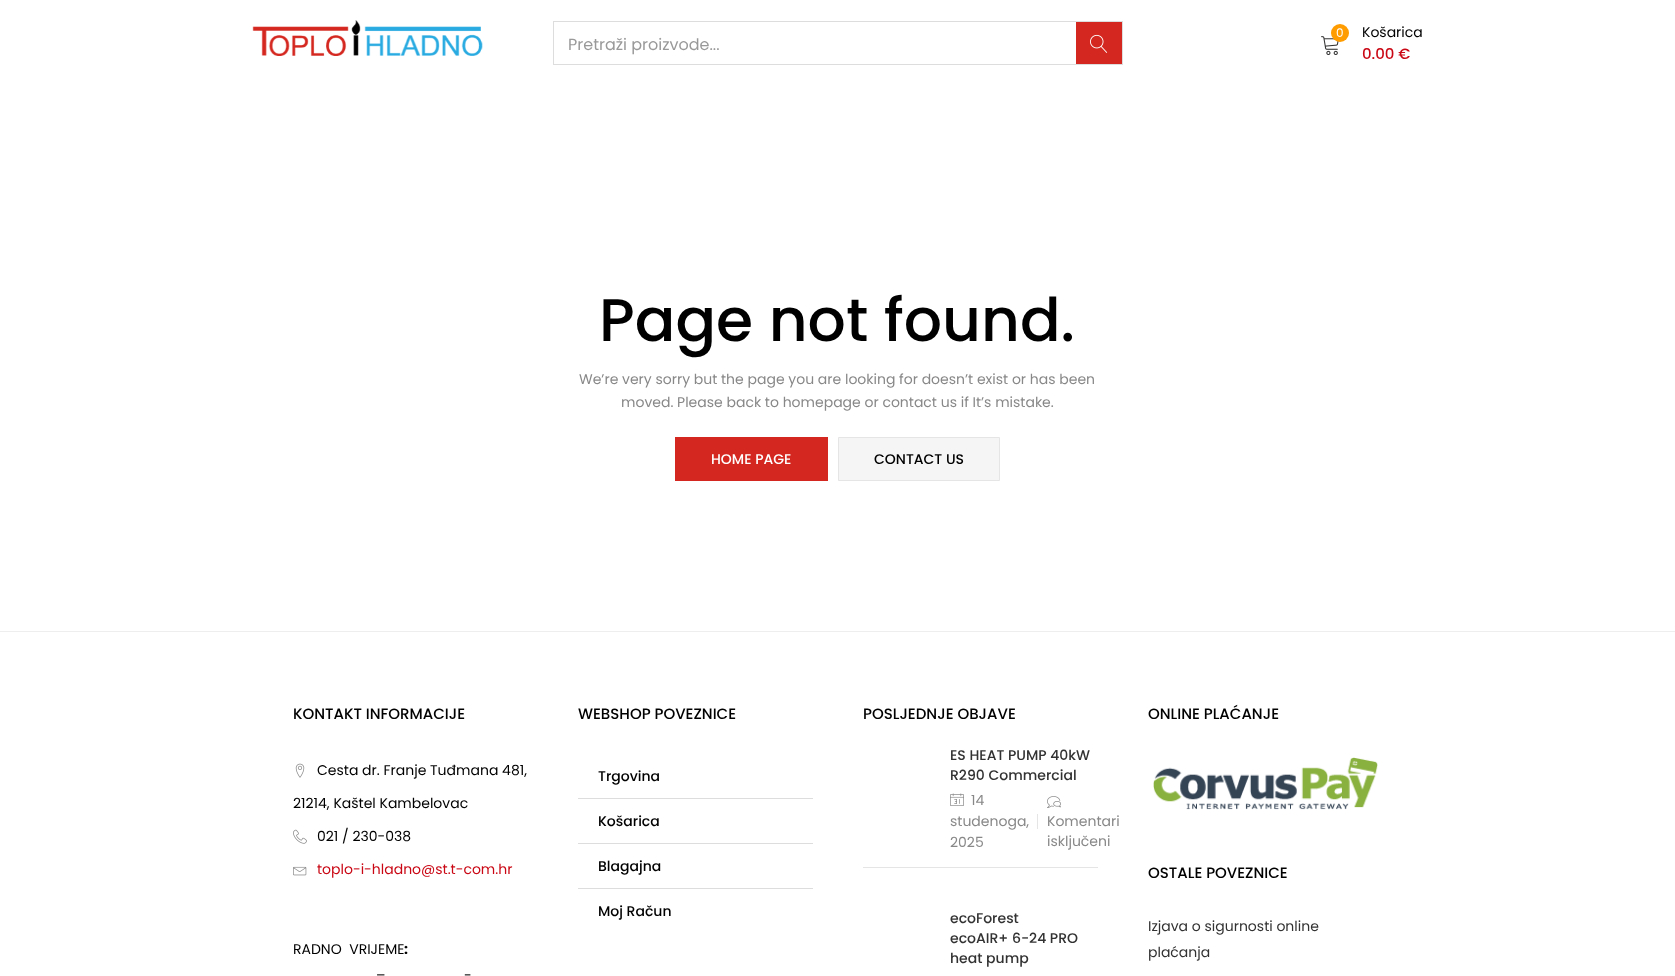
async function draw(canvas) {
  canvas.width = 1675;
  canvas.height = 976;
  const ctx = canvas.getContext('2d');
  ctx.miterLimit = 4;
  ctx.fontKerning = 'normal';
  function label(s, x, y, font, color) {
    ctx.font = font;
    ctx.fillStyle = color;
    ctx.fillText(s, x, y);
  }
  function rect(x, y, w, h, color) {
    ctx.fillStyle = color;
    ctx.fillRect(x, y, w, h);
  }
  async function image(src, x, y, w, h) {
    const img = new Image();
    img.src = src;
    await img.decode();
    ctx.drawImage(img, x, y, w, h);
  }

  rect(0, 0, 1675, 976, '#fff');
  await image('assets/img1.png', 252, 20, 231, 36);
  ctx.strokeStyle = '#ddd';
  ctx.strokeRect(553.5, 21.5, 569, 43);
  label('Pretraži proizvode...', 568, 50, '16px Poppins', '#999');
  rect(1076, 22, 46, 42, '#d4271f');
  await image('assets/img2.png', 1090, 34, 18, 19);
  await image('assets/img3.png', 1321, 36, 18, 19);
  ctx.fillStyle = '#ff9c00';
  ctx.beginPath();
  ctx.arc(1340, 33, 9, 0, 2 * Math.PI);
  ctx.fill();
  label('0', 1336, 37, '12px Poppins', '#fff');
  label('Košarica', 1362, 37, '14px Poppins', '#000');
  label('0.00 €', 1362, 59, '500 15px Poppins', '#ca0815');
  label('Page not found.', 599, 341, '500 60px Poppins', '#000');
  label('We’re very sorry but the page you are looking for doesn’t exist or has been', 579, 384, '14px Poppins', '#888');
  label('moved. Please back to homepage or contact us if It’s mistake.', 621, 407, '14px Poppins', '#888');
  rect(675, 437, 153, 44, '#d4271f');
  label('HOME PAGE', 711, 464, '500 14px Poppins', '#fff');
  ctx.fillStyle = '#f5f5f5';
  ctx.beginPath();
  ctx.rect(838.5, 437.5, 161, 43);
  ctx.fill();
  ctx.strokeStyle = '#e5e5e5';
  ctx.stroke();
  label('CONTACT US', 874, 464, '500 14px Poppins', '#000');
  rect(0, 631, 1675, 1, '#eee');
  label('KONTAKT INFORMACIJE', 293, 719, '500 15px Poppins', '#000');
  await image('assets/img4.png', 295, 763, 10, 15);
  label('Cesta dr. Franje Tuđmana 481,', 317, 775, '14px Poppins', '#000');
  label('21214, Kaštel Kambelovac', 293, 808, '14px Poppins', '#000');
  await image('assets/img5.png', 293, 829, 14, 15);
  label('021 / 230-038', 317, 841, '14px Poppins', '#000');
  await image('assets/img6.png', 293, 866, 14, 10);
  label('toplo-i-hladno@st.t-com.hr', 317, 874, '14px Poppins', '#ca0815');
  label('RADNO  VRIJEME', 293, 954, '14px Poppins', '#000');
  label(':', 404, 954, 'bold 14px Poppins', '#000');
  label('–', 376, 980, '14px Poppins', '#000');
  label('-', 464, 980, '14px Poppins', '#000');
  label('WEBSHOP POVEZNICE', 578, 719, '500 15px Poppins', '#000');
  rect(578, 798, 235, 1, '#ddd');
  label('Trgovina', 598, 781, '500 14px Poppins', '#000');
  rect(578, 843, 235, 1, '#ddd');
  label('Košarica', 598, 826, '500 14px Poppins', '#000');
  rect(578, 888, 235, 1, '#ddd');
  label('Blagajna', 598, 871, '500 14px Poppins', '#000');
  label('Moj Račun', 598, 916, '500 14px Poppins', '#000');
  label('POSLJEDNJE OBJAVE', 863, 719, '500 15px Poppins', '#000');
  rect(863, 867, 235, 1, '#e5e5e5');
  label('ES HEAT PUMP 40kW', 950, 760, '500 14px Poppins', '#323232');
  label('R290 Commercial', 950, 780, '500 14px Poppins', '#323232');
  await image('assets/img7.png', 950, 793, 14, 13);
  label('14', 971, 805, '14px Poppins', '#888');
  label('studenoga,', 950, 826, '14px Poppins', '#888');
  rect(1037, 814, 1, 15, '#e5e5e5');
  label('2025', 950, 847, '14px Poppins', '#888');
  await image('assets/img8.png', 1047, 796, 14, 12);
  label('Komentari', 1047, 826, '14px Poppins', '#888');
  label('isključeni', 1047, 846, '14px Poppins', '#888');
  label('ecoForest', 950, 923, '500 14px Poppins', '#323232');
  label('ecoAIR+ 6-24 PRO', 950, 943, '500 14px Poppins', '#323232');
  label('heat pump', 950, 963, '500 14px Poppins', '#323232');
  label('ONLINE PLAĆANJE', 1148, 719, '500 15px Poppins', '#000');
  await image('assets/img9.png', 1153, 757, 225, 53);
  label('OSTALE POVEZNICE', 1148, 878, '500 15px Poppins', '#000');
  label('Izjava o sigurnosti online', 1148, 931, '14px Poppins', '#323232');
  label('plaćanja', 1148, 957, '14px Poppins', '#323232');
}

draw(document.querySelector('canvas'));
